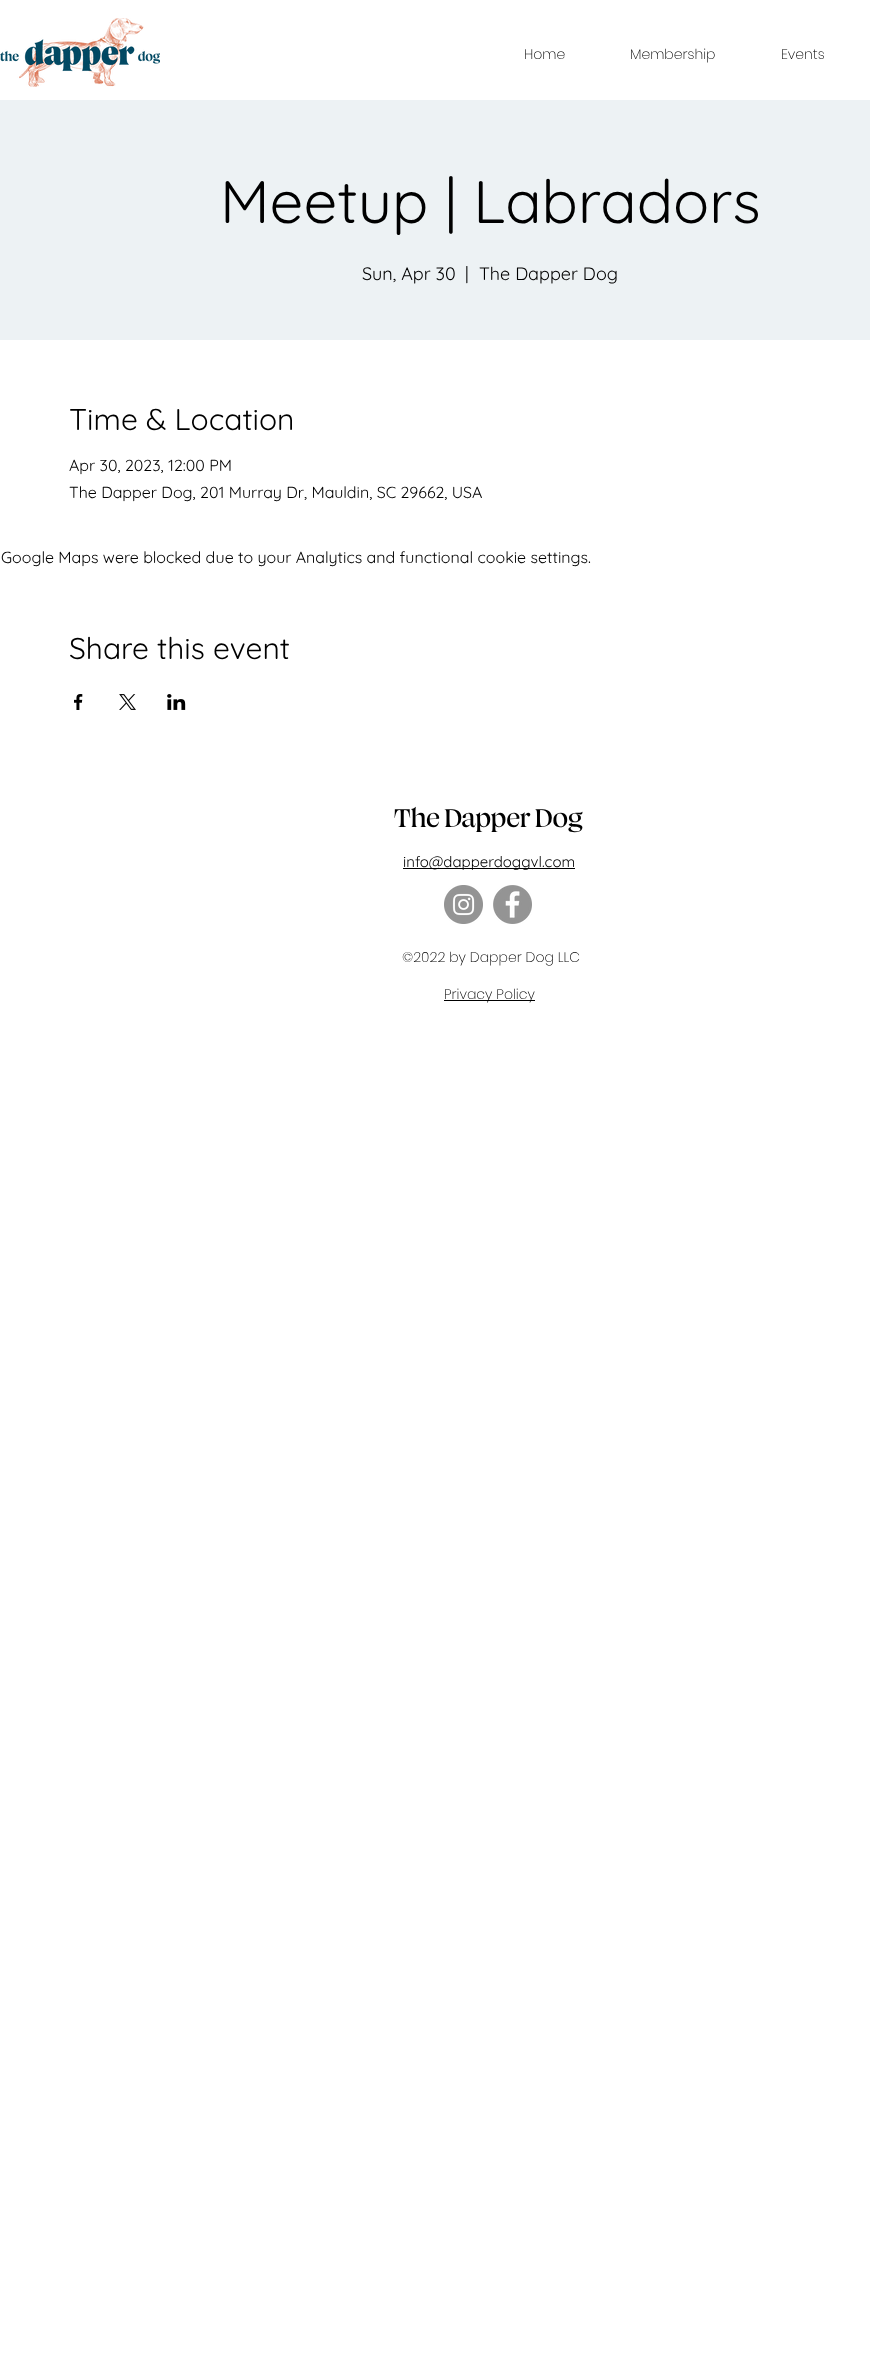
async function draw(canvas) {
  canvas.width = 870;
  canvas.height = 2358;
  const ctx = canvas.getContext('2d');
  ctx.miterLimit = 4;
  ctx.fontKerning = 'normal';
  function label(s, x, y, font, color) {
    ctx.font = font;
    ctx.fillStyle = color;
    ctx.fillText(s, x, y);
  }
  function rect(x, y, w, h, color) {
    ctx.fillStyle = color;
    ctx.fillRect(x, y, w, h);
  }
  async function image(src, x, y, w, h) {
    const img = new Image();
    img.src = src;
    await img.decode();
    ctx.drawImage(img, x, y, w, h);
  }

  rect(0, 0, 870, 2358, '#fff');
  await image('assets/img1.png', 0, 18, 160, 69);
  label('Home', 524, 59, '200 14px Poppins', '#000');
  label('Membership', 630, 59, '200 14px Poppins', '#000');
  label('Events', 781, 59, '200 14px Poppins', '#000');
  rect(0, 100, 870, 240, '#edf2f4');
  label('Meetup | Labradors', 220, 223, '60px Quicksand', '#000');
  label('Sun, Apr 30', 362, 280, '18px Quicksand', '#000');
  label('|', 465, 280, '18px Quicksand', '#000');
  label('The Dapper Dog', 479, 280, '18px Quicksand', '#000');
  label('Time & Location', 69, 430, '30px Quicksand', '#000');
  label('Apr 30, 2023, 12:00 PM', 69, 471, '16px Quicksand', '#000');
  label('The Dapper Dog, 201 Murray Dr, Mauldin, SC 29662, USA', 69, 498, '16px Quicksand', '#000');
  label('Google Maps were blocked due to your Analytics and functional cookie settings.', 1, 563, '16px Quicksand', '#000');
  label('Share this event', 69, 659, '30px Quicksand', '#000');
  await image('assets/img2.png', 74, 694, 9, 16);
  await image('assets/img3.png', 119, 694, 17, 16);
  await image('assets/img4.png', 167, 694, 19, 16);
  label('The Dapper Dog', 394, 827, '28px "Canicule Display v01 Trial"', '#000');
  rect(403, 868, 172, 1, '#000');
  label('info@dapperdoggvl.com', 403, 867, '15px Quicksand', '#000');
  await image('assets/img5.png', 444, 885, 39, 39);
  await image('assets/img6.png', 493, 885, 39, 39);
  label('©2022 by Dapper Dog LLC', 402, 962, '200 14px Poppins', '#000');
  rect(444, 1000, 91, 1, '#000');
  label('Privacy Policy', 444, 999, '200 14px Poppins', '#000');
}

draw(document.querySelector('canvas'));
